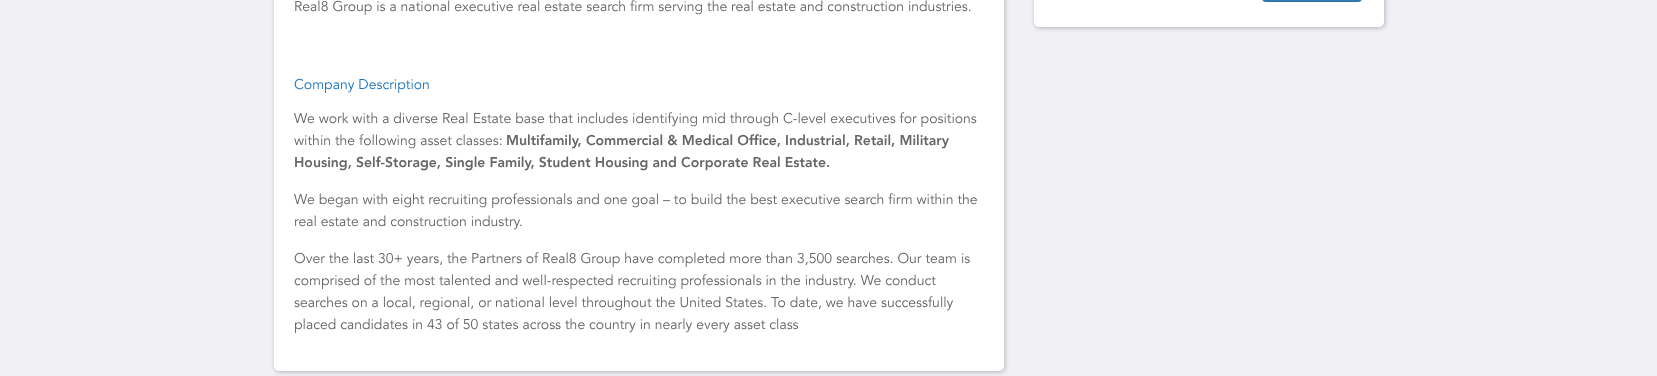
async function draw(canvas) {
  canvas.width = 1657;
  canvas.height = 376;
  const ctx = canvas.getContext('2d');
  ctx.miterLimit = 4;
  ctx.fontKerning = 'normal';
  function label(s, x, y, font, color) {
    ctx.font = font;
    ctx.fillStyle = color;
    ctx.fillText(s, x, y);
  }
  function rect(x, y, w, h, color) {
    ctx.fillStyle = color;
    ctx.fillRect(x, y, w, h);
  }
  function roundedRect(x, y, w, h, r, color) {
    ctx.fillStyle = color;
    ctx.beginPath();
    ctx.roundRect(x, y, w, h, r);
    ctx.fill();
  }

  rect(0, 0, 1657, 376, '#f1f0f5');
  ctx.fillStyle = '#00000040';
  ctx.filter = 'blur(2.5px)';
  ctx.beginPath();
  ctx.roundRect(275, -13, 730, 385, 5);
  ctx.fill();
  ctx.filter = 'none';
  roundedRect(274, -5, 730, 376, 5, '#fff');
  label('Real8 Group is a national executive real estate search firm serving the real estate and construction industries.', 294, 11, '14px Avenir', '#666');
  label('Company Description', 294, 89, '14px Avenir', '#1b75bb');
  label('We work with a diverse Real Estate base that includes identifying mid through C-level executives for positions', 294, 123, '14px Avenir', '#666');
  label('within the following asset classes:', 294, 145, '14px Avenir', '#666');
  label('Multifamily, Commercial & Medical Office, Industrial, Retail, Military', 506, 145, '900 14px Avenir', '#666');
  label('Housing, Self-Storage, Single Family, Student Housing and Corporate Real Estate.', 294, 167, '900 14px Avenir', '#666');
  label('We began with eight recruiting professionals and one goal – to build the best executive search firm within the', 294, 204, '14px Avenir', '#666');
  label('real estate and construction industry.', 294, 226, '14px Avenir', '#666');
  label('Over the last 30+ years, the Partners of Real8 Group have completed more than 3,500 searches. Our team is', 294, 263, '14px Avenir', '#666');
  label('comprised of the most talented and well-respected recruiting professionals in the industry. We conduct', 294, 285, '14px Avenir', '#666');
  label('searches on a local, regional, or national level throughout the United States. To date, we have successfully', 294, 307, '14px Avenir', '#666');
  label('placed candidates in 43 of 50 states across the country in nearly every asset class', 294, 329, '14px Avenir', '#666');
  ctx.fillStyle = '#00000040';
  ctx.filter = 'blur(2.5px)';
  ctx.beginPath();
  ctx.roundRect(1035, -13, 350, 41, 5);
  ctx.fill();
  ctx.filter = 'none';
  roundedRect(1034, -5, 350, 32, 5, '#fff');
  ctx.fillStyle = '#337ab7';
  ctx.beginPath();
  ctx.roundRect(1262.5, -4.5, 99, 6, 3.5);
  ctx.fill();
  ctx.strokeStyle = '#2e6da4';
  ctx.stroke();
}

draw(document.querySelector('canvas'));
